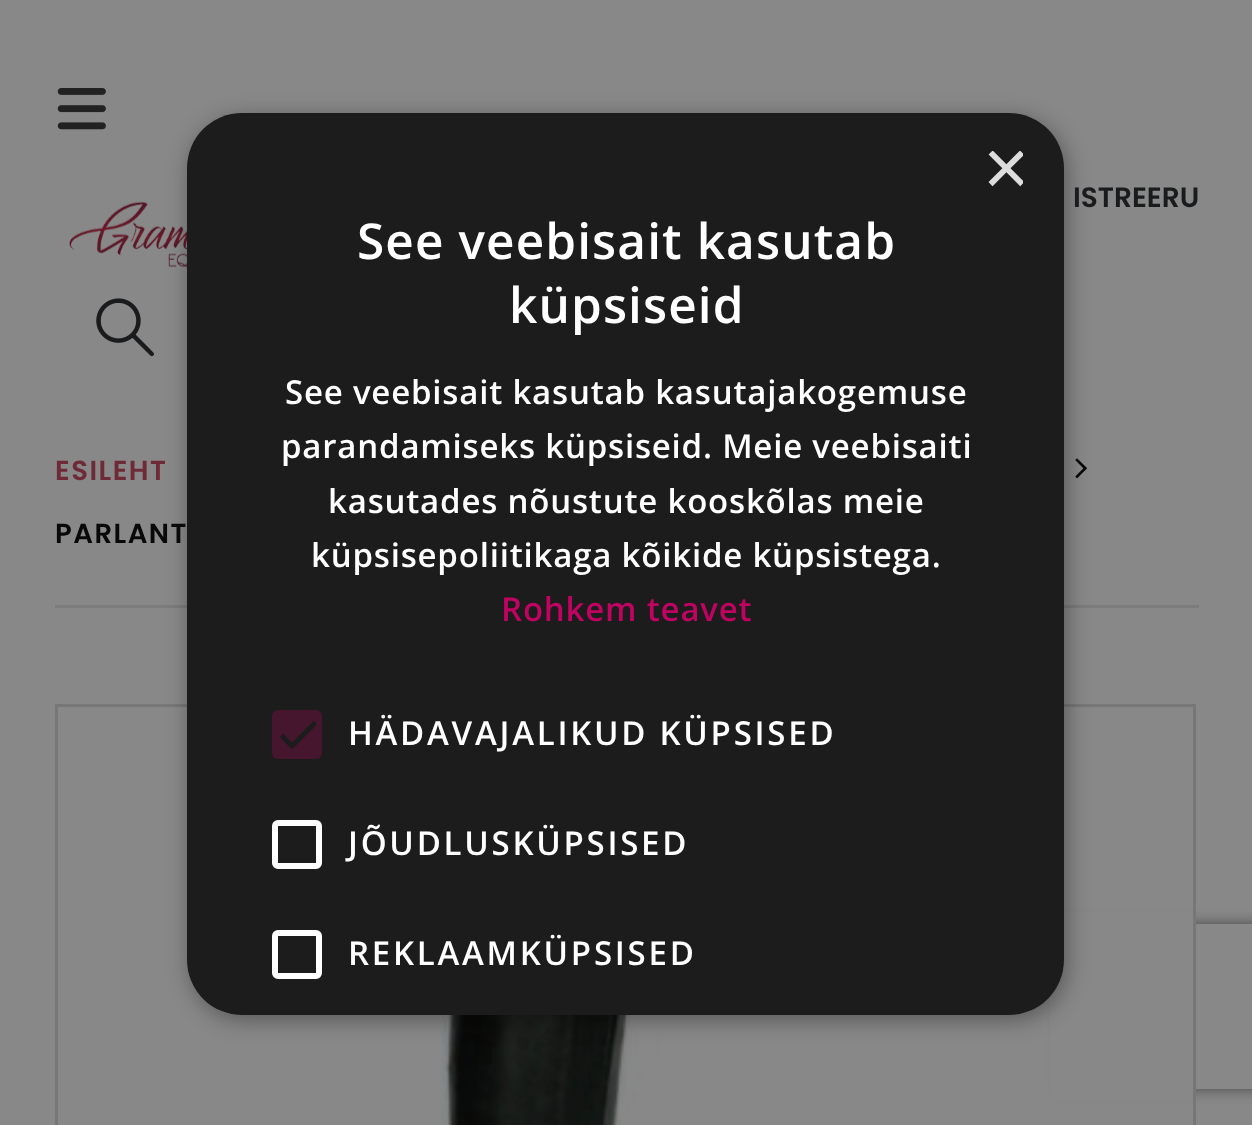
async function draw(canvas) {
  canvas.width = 1252;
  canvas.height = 1125;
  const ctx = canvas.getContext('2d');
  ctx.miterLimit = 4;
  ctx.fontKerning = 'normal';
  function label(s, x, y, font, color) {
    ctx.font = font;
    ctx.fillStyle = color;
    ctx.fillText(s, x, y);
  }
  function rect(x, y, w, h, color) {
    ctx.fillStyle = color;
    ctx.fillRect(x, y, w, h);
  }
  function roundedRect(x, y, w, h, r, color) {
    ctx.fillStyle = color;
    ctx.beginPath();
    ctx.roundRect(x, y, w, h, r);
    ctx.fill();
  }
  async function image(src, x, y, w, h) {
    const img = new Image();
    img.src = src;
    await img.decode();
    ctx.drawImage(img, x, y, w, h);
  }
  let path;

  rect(0, 0, 1252, 1125, '#888');
  await image('assets/img2.png', 69, 201, 118, 67);
  rect(55, 605, 1144, 3, '#7c7c7c');
  await image('assets/img4.png', 1075, 458, 12, 21);
  ctx.save();
  path = new Path2D('M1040 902H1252V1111H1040ZM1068 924H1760C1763.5 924 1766 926.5 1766 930V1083C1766 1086.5 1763.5 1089 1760 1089H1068C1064.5 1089 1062 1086.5 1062 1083V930C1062 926.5 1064.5 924 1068 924Z');
  ctx.clip(path, 'evenodd');
  ctx.fillStyle = '#494949';
  ctx.filter = 'blur(7px)';
  ctx.beginPath();
  ctx.roundRect(1062, 924, 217, 165, 6);
  ctx.fill();
  ctx.filter = 'none';
  ctx.restore();
  rect(1050, 912, 143, 189, '#888');
  ctx.strokeStyle = '#777';
  ctx.lineWidth = 3;
  ctx.strokeRect(56.5, 705.5, 1138, 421);
  await image('assets/img5.png', 441, 1015, 230, 110);
  ctx.save();
  path = new Path2D('M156 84H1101V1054H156ZM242 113H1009C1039.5 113 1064 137.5 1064 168V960C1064 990.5 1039.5 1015 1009 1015H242C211.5 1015 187 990.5 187 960V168C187 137.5 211.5 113 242 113Z');
  ctx.clip(path, 'evenodd');
  ctx.fillStyle = '#00000059';
  ctx.filter = 'blur(11px)';
  ctx.beginPath();
  ctx.roundRect(190, 118, 877, 902, 55);
  ctx.fill();
  ctx.filter = 'none';
  ctx.restore();
  roundedRect(187, 113, 877, 902, 55, '#1c1c1c');
  ctx.save();
  ctx.beginPath();
  ctx.rect(982, 151, 41, 42);
  ctx.clip();
  label('×', 983, 195, '80px Liberation Sans', '#ddd');
  ctx.restore();
  ctx.letterSpacing = '1.1px';
  label('See veebisait kasutab', 357, 259, '600 49.5px Open Sans', '#fff');
  label('küpsiseid', 509, 323, '600 49.5px Open Sans', '#fff');
  ctx.letterSpacing = '0.8px';
  label('See veebisait kasutab kasutajakogemuse', 285, 404, '600 33px Open Sans', '#fff');
  label('parandamiseks küpsiseid. Meie veebisaiti', 281, 458, '600 33px Open Sans', '#fff');
  label('kasutades nõustute kooskõlas meie', 328, 513, '600 33px Open Sans', '#fff');
  label('küpsisepoliitikaga kõikide küpsistega.', 311, 567, '600 33px Open Sans', '#fff');
  label('Rohkem teavet', 501, 621, '600 33px Open Sans', '#bf0360');
  roundedRect(272, 710, 50, 49, 6, '#46162e');
  ctx.save();
  ctx.beginPath();
  ctx.rect(278, 715, 38, 39);
  ctx.clip();
  path = new Path2D('M281.5 735.5L292 746L315.5 722.5');
  ctx.strokeStyle = '#1c1c1c';
  ctx.lineWidth = 5;
  ctx.stroke(path);
  ctx.restore();
  ctx.letterSpacing = '2.75px';
  label('HÄDAVAJALIKUD KÜPSISED', 348, 745, '600 33px Open Sans', '#fff');
  ctx.beginPath();
  ctx.roundRect(275, 823, 44, 43, 3);
  ctx.strokeStyle = '#fff';
  ctx.lineWidth = 6;
  ctx.stroke();
  label('JÕUDLUSKÜPSISED', 348, 855, '600 33px Open Sans', '#fff');
  ctx.beginPath();
  ctx.roundRect(275, 933, 44, 43, 3);
  ctx.stroke();
  label('REKLAAMKÜPSISED', 348, 965, '600 33px Open Sans', '#fff');
  await image('assets/img1.png', 57, 88, 49, 42);
  await image('assets/img3.png', 96, 298, 58, 59);
  ctx.letterSpacing = '0px';
  label('ISTREERU', 1073, 207, '600 28px Poppins', '#1a1b1d');
  ctx.letterSpacing = '1.5px';
  label('ESILEHT', 55, 480, '600 27.5px Poppins', '#6e2a37');
  label('PARLANT', 55, 543, '600 27.5px Poppins', '#090909');
}

draw(document.querySelector('canvas'));
